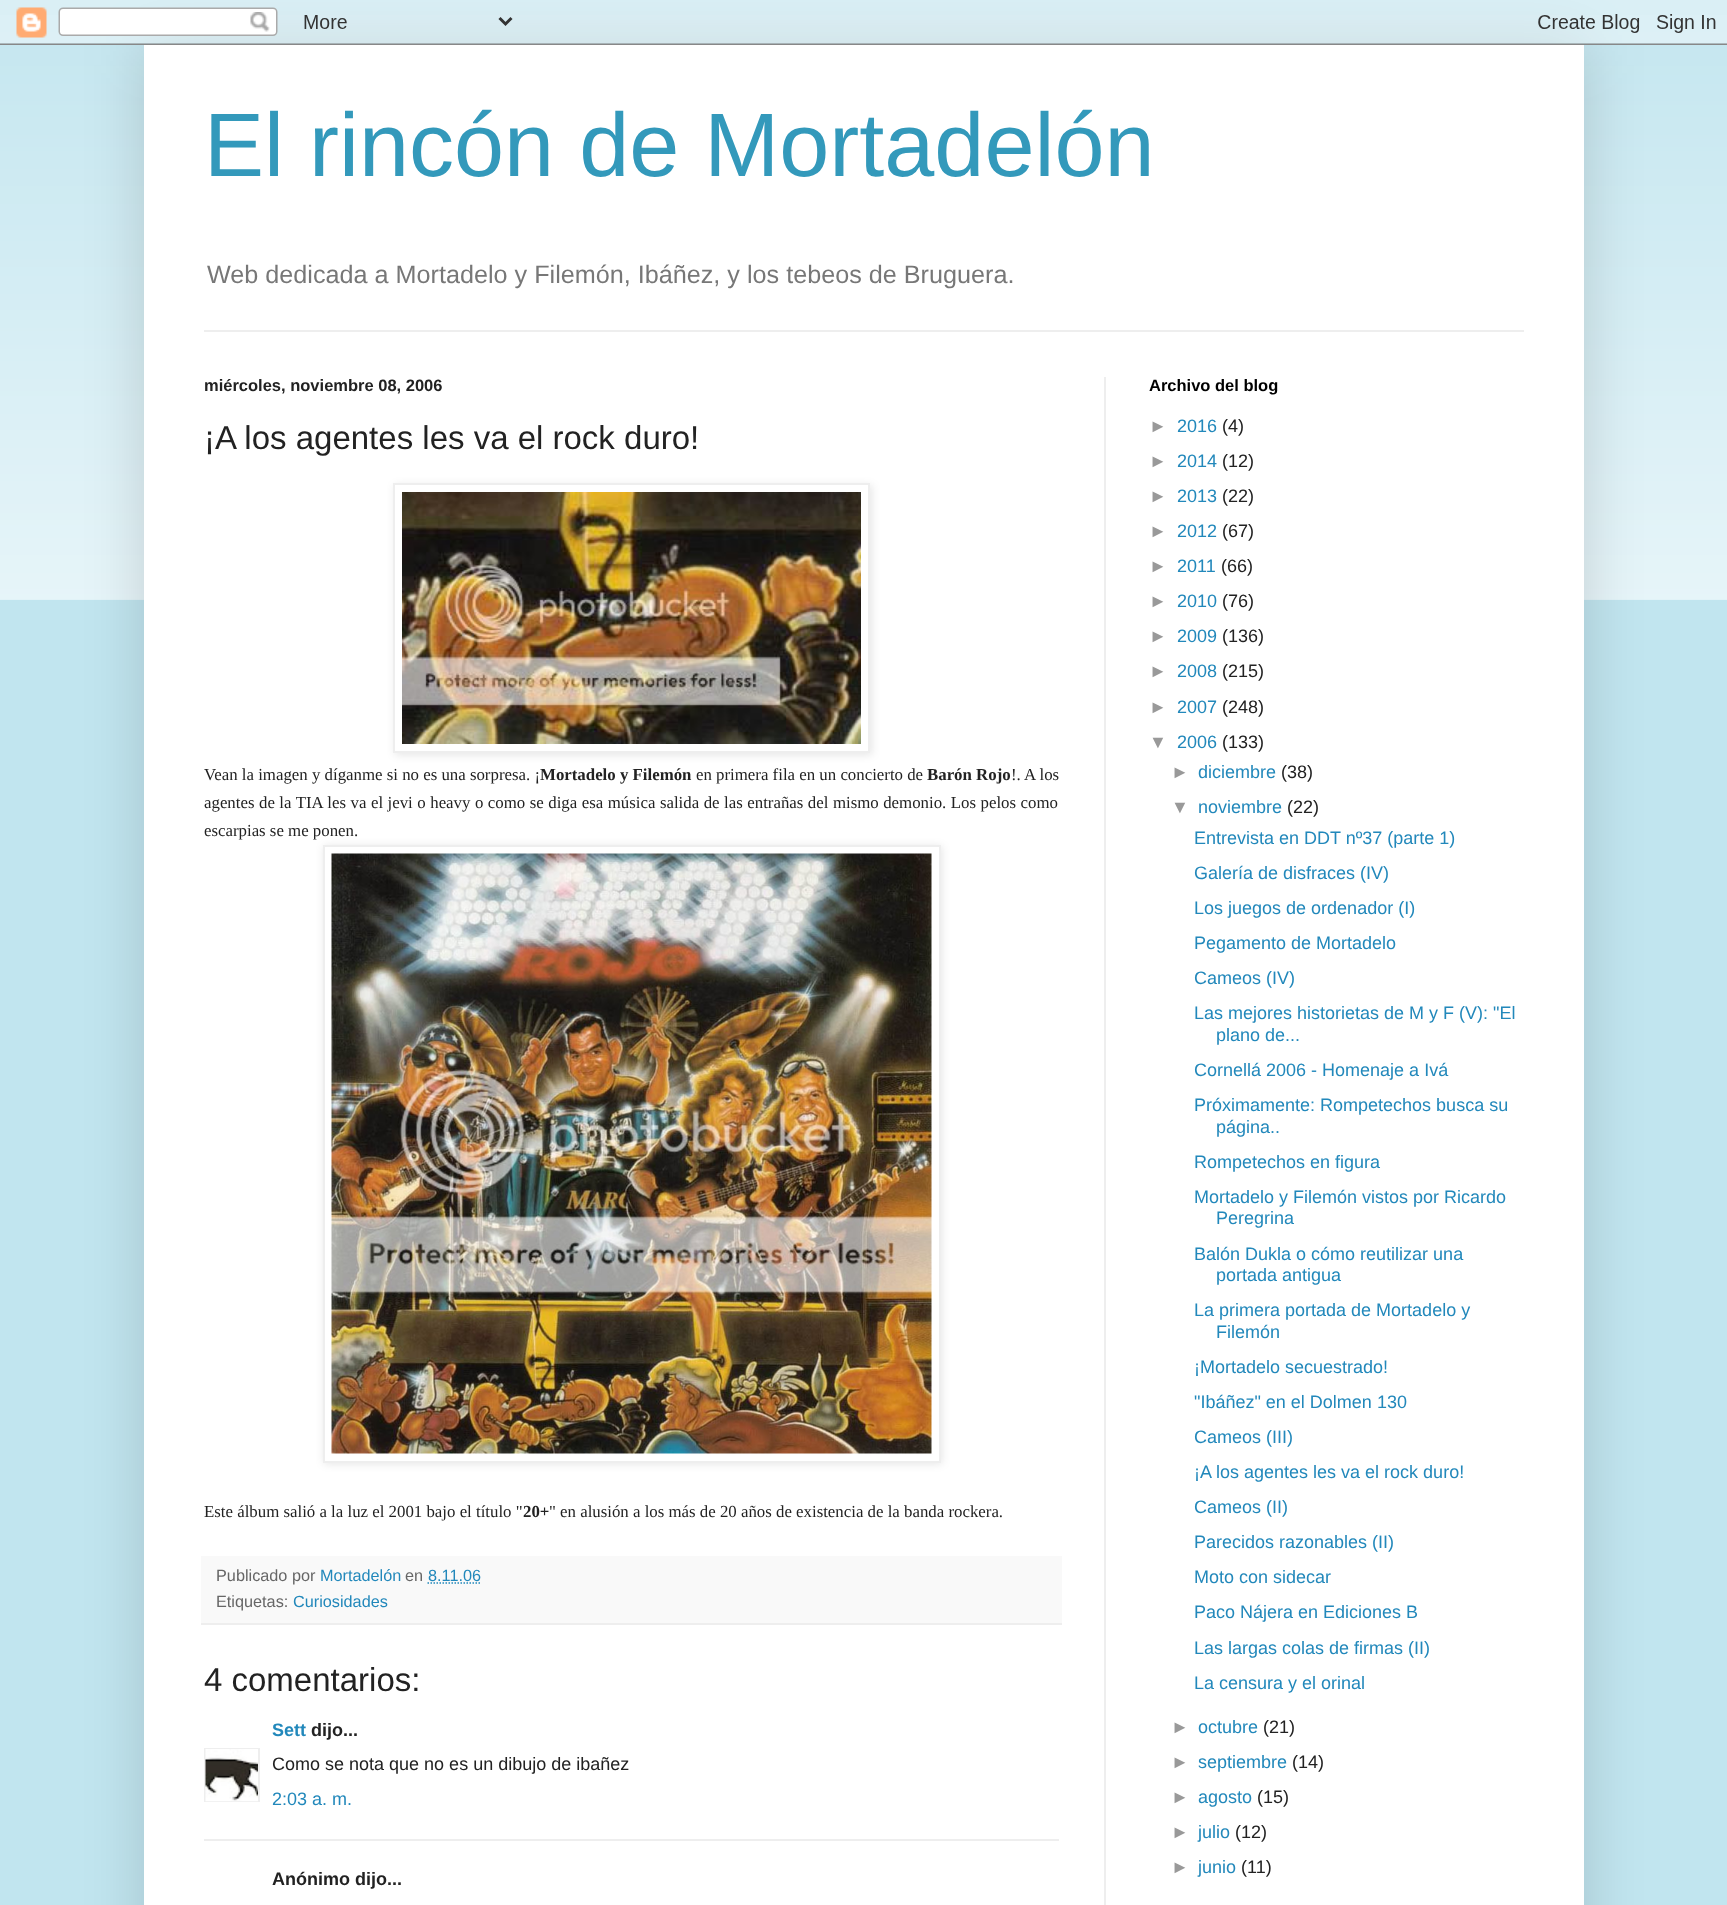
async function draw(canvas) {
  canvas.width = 1727;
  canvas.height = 1905;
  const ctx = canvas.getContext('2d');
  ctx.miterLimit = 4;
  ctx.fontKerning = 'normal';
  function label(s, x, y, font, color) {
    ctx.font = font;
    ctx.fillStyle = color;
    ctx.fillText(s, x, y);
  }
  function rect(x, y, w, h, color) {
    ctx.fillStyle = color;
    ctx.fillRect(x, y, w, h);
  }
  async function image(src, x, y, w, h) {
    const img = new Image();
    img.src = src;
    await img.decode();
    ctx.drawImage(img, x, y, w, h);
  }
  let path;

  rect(0, 0, 1727, 1905, '#c1e5ef');
  await image('assets/img2.png', 0, 15, 1727, 585);
  ctx.fillStyle = '#00000026';
  ctx.filter = 'blur(30px)';
  ctx.beginPath();
  ctx.rect(144, 45, 1440, 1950);
  ctx.fill();
  ctx.filter = 'none';
  await image('assets/img1.png', 0, 0, 1727, 45);
  rect(144, 45, 1440, 1860, '#fff');
  label('El rincón de Mortadelón', 204, 176, '90px Liberation Sans', '#39b');
  label('Web dedicada a Mortadelo y Filemón, Ibáñez, y los tebeos de Bruguera.', 207, 283, '25.2px Liberation Sans', '#777');
  rect(204, 330, 1320, 2, '#eee');
  rect(1104, 377, 2, 1528, '#eee');
  label('miércoles, noviembre 08, 2006', 204, 391, 'bold 16.5px Liberation Sans', '#222');
  label('¡A los agentes les va el rock duro!', 204, 449, '33px Liberation Sans', '#222');
  ctx.save();
  path = new Path2D('M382 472H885V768H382ZM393 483H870V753H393Z');
  ctx.clip(path, 'evenodd');
  ctx.fillStyle = '#0000001a';
  ctx.filter = 'blur(4px)';
  ctx.beginPath();
  ctx.rect(395, 485, 477, 270);
  ctx.fill();
  ctx.filter = 'none';
  ctx.restore();
  ctx.strokeStyle = '#eee';
  ctx.lineWidth = 2;
  ctx.strokeRect(394, 484, 475, 268);
  await image('assets/img3.png', 402, 492, 459, 252);
  label('Vean la imagen y díganme si no es una sorpresa. ¡', 204, 780, '16.83px Liberation Serif', '#222');
  label('Mortadelo y Filemón', 540, 780, 'bold 16.83px Liberation Serif', '#222');
  label('en primera fila en un concierto de', 696, 780, '16.83px Liberation Serif', '#222');
  label('Barón Rojo', 927, 780, 'bold 16.83px Liberation Serif', '#222');
  label('!. A los', 1011, 780, '16.83px Liberation Serif', '#222');
  ctx.wordSpacing = '0.3px';
  label('agentes de la TIA les va el jevi o heavy o como se diga esa música salida de las entrañas del mismo demonio. Los pelos como', 204, 808, '16.83px Liberation Serif', '#222');
  ctx.wordSpacing = '0px';
  label('escarpias se me ponen.', 204, 836, '16.83px Liberation Serif', '#222');
  ctx.fillStyle = '#0000001a';
  ctx.filter = 'blur(4px)';
  ctx.beginPath();
  ctx.rect(324, 846, 618, 618);
  ctx.fill();
  ctx.filter = 'none';
  ctx.fillStyle = '#fff';
  ctx.beginPath();
  ctx.rect(324, 846, 616, 616);
  ctx.fill();
  ctx.stroke();
  await image('assets/img4.png', 331, 853, 601, 601);
  label('Este álbum salió a la luz el 2001 bajo el título "', 204, 1517, '16.83px Liberation Serif', '#222');
  label('20+', 523, 1517, 'bold 16.83px Liberation Serif', '#222');
  label('" en alusión a los más de 20 años de existencia de la banda rockera.', 549, 1517, '16.83px Liberation Serif', '#222');
  rect(201, 1556, 861, 67, '#f9f9f9');
  rect(201, 1623, 861, 2, '#eee');
  label('Publicado por', 216, 1581, '16.25px Liberation Sans', '#666');
  label('Mortadelón', 320, 1581, '16.25px Liberation Sans', '#28b');
  label('en', 405, 1581, '16.25px Liberation Sans', '#666');
  label('8.11.06', 428, 1581, '16.25px Liberation Sans', '#28b');
  path = new Path2D('M427.5 1583H480.5');
  ctx.strokeStyle = '#28b';
  ctx.lineWidth = 1.5;
  ctx.setLineDash([1.5, 1.5]);
  ctx.stroke(path);
  label('Etiquetas:', 216, 1607, '16.25px Liberation Sans', '#666');
  label('Curiosidades', 293, 1607, '16.25px Liberation Sans', '#28b');
  label('4 comentarios:', 204, 1691, '33px Liberation Sans', '#222');
  label('Sett', 272, 1736, 'bold 18px Liberation Sans', '#28b');
  label('dijo...', 311, 1736, 'bold 18px Liberation Sans', '#222');
  ctx.save();
  ctx.beginPath();
  ctx.rect(204, 1748, 56, 54);
  ctx.clip();
  ctx.strokeStyle = '#eee';
  ctx.lineWidth = 2;
  ctx.setLineDash([]);
  ctx.strokeRect(205, 1749, 54, 53);
  ctx.restore();
  await image('assets/img5.png', 205, 1749, 53, 53);
  label('Como se nota que no es un dibujo de ibañez', 272, 1770, '18px Liberation Sans', '#222');
  label('2:03 a. m.', 272, 1805, '18px Liberation Sans', '#28b');
  rect(204, 1839, 855, 2, '#eee');
  label('Anónimo dijo...', 272, 1885, 'bold 18px Liberation Sans', '#222');
  label('Archivo del blog', 1149, 391, 'bold 16.5px Liberation Sans', '#000');
  label('►', 1149, 432, '18px Liberation Sans', '#999');
  label('2016', 1177, 432, '18px Liberation Sans', '#28b');
  label('(4)', 1222, 432, '18px Liberation Sans', '#222');
  label('►', 1149, 467, '18px Liberation Sans', '#999');
  label('2014', 1177, 467, '18px Liberation Sans', '#28b');
  label('(12)', 1222, 467, '18px Liberation Sans', '#222');
  label('►', 1149, 502, '18px Liberation Sans', '#999');
  label('2013', 1177, 502, '18px Liberation Sans', '#28b');
  label('(22)', 1222, 502, '18px Liberation Sans', '#222');
  label('►', 1149, 537, '18px Liberation Sans', '#999');
  label('2012', 1177, 537, '18px Liberation Sans', '#28b');
  label('(67)', 1222, 537, '18px Liberation Sans', '#222');
  label('►', 1149, 572, '18px Liberation Sans', '#999');
  label('2011', 1177, 572, '18px Liberation Sans', '#28b');
  label('(66)', 1221, 572, '18px Liberation Sans', '#222');
  label('►', 1149, 607, '18px Liberation Sans', '#999');
  label('2010', 1177, 607, '18px Liberation Sans', '#28b');
  label('(76)', 1222, 607, '18px Liberation Sans', '#222');
  label('►', 1149, 642, '18px Liberation Sans', '#999');
  label('2009', 1177, 642, '18px Liberation Sans', '#28b');
  label('(136)', 1222, 642, '18px Liberation Sans', '#222');
  label('►', 1149, 677, '18px Liberation Sans', '#999');
  label('2008', 1177, 677, '18px Liberation Sans', '#28b');
  label('(215)', 1222, 677, '18px Liberation Sans', '#222');
  label('►', 1149, 713, '18px Liberation Sans', '#999');
  label('2007', 1177, 713, '18px Liberation Sans', '#28b');
  label('(248)', 1222, 713, '18px Liberation Sans', '#222');
  label('▼', 1149, 748, '18px Liberation Sans', '#999');
  label('2006', 1177, 748, '18px Liberation Sans', '#28b');
  label('(133)', 1222, 748, '18px Liberation Sans', '#222');
  label('►', 1171, 778, '18px Liberation Sans', '#999');
  label('diciembre', 1198, 778, '18px Liberation Sans', '#28b');
  label('(38)', 1281, 778, '18px Liberation Sans', '#222');
  label('▼', 1171, 813, '18px Liberation Sans', '#999');
  label('noviembre', 1198, 813, '18px Liberation Sans', '#28b');
  label('(22)', 1287, 813, '18px Liberation Sans', '#222');
  label('Entrevista en DDT nº37 (parte 1)', 1194, 844, '18px Liberation Sans', '#28b');
  label('Galería de disfraces (IV)', 1194, 879, '18px Liberation Sans', '#28b');
  label('Los juegos de ordenador (I)', 1194, 914, '18px Liberation Sans', '#28b');
  label('Pegamento de Mortadelo', 1194, 949, '18px Liberation Sans', '#28b');
  label('Cameos (IV)', 1194, 984, '18px Liberation Sans', '#28b');
  label('Las mejores historietas de M y F (V): "El', 1194, 1019, '18px Liberation Sans', '#28b');
  label('plano de...', 1216, 1041, '18px Liberation Sans', '#28b');
  label('Cornellá 2006 - Homenaje a Ivá', 1194, 1076, '18px Liberation Sans', '#28b');
  label('Próximamente: Rompetechos busca su', 1194, 1111, '18px Liberation Sans', '#28b');
  label('página..', 1216, 1133, '18px Liberation Sans', '#28b');
  label('Rompetechos en figura', 1194, 1168, '18px Liberation Sans', '#28b');
  label('Mortadelo y Filemón vistos por Ricardo', 1194, 1203, '18px Liberation Sans', '#28b');
  label('Peregrina', 1216, 1224, '18px Liberation Sans', '#28b');
  label('Balón Dukla o cómo reutilizar una', 1194, 1260, '18px Liberation Sans', '#28b');
  label('portada antigua', 1216, 1281, '18px Liberation Sans', '#28b');
  label('La primera portada de Mortadelo y', 1194, 1316, '18px Liberation Sans', '#28b');
  label('Filemón', 1216, 1338, '18px Liberation Sans', '#28b');
  label('¡Mortadelo secuestrado!', 1194, 1373, '18px Liberation Sans', '#28b');
  label('"Ibáñez" en el Dolmen 130', 1194, 1408, '18px Liberation Sans', '#28b');
  label('Cameos (III)', 1194, 1443, '18px Liberation Sans', '#28b');
  label('¡A los agentes les va el rock duro!', 1194, 1478, '18px Liberation Sans', '#28b');
  label('Cameos (II)', 1194, 1513, '18px Liberation Sans', '#28b');
  label('Parecidos razonables (II)', 1194, 1548, '18px Liberation Sans', '#28b');
  label('Moto con sidecar', 1194, 1583, '18px Liberation Sans', '#28b');
  label('Paco Nájera en Ediciones B', 1194, 1618, '18px Liberation Sans', '#28b');
  label('Las largas colas de firmas (II)', 1194, 1654, '18px Liberation Sans', '#28b');
  label('La censura y el orinal', 1194, 1689, '18px Liberation Sans', '#28b');
  label('►', 1171, 1733, '18px Liberation Sans', '#999');
  label('octubre', 1198, 1733, '18px Liberation Sans', '#28b');
  label('(21)', 1263, 1733, '18px Liberation Sans', '#222');
  label('►', 1171, 1768, '18px Liberation Sans', '#999');
  label('septiembre', 1198, 1768, '18px Liberation Sans', '#28b');
  label('(14)', 1292, 1768, '18px Liberation Sans', '#222');
  label('►', 1171, 1803, '18px Liberation Sans', '#999');
  label('agosto', 1198, 1803, '18px Liberation Sans', '#28b');
  label('(15)', 1257, 1803, '18px Liberation Sans', '#222');
  label('►', 1171, 1838, '18px Liberation Sans', '#999');
  label('julio', 1198, 1838, '18px Liberation Sans', '#28b');
  label('(12)', 1235, 1838, '18px Liberation Sans', '#222');
  label('►', 1171, 1873, '18px Liberation Sans', '#999');
  label('junio', 1198, 1873, '18px Liberation Sans', '#28b');
  label('(11)', 1241, 1873, '18px Liberation Sans', '#222');
}

draw(document.querySelector('canvas'));
